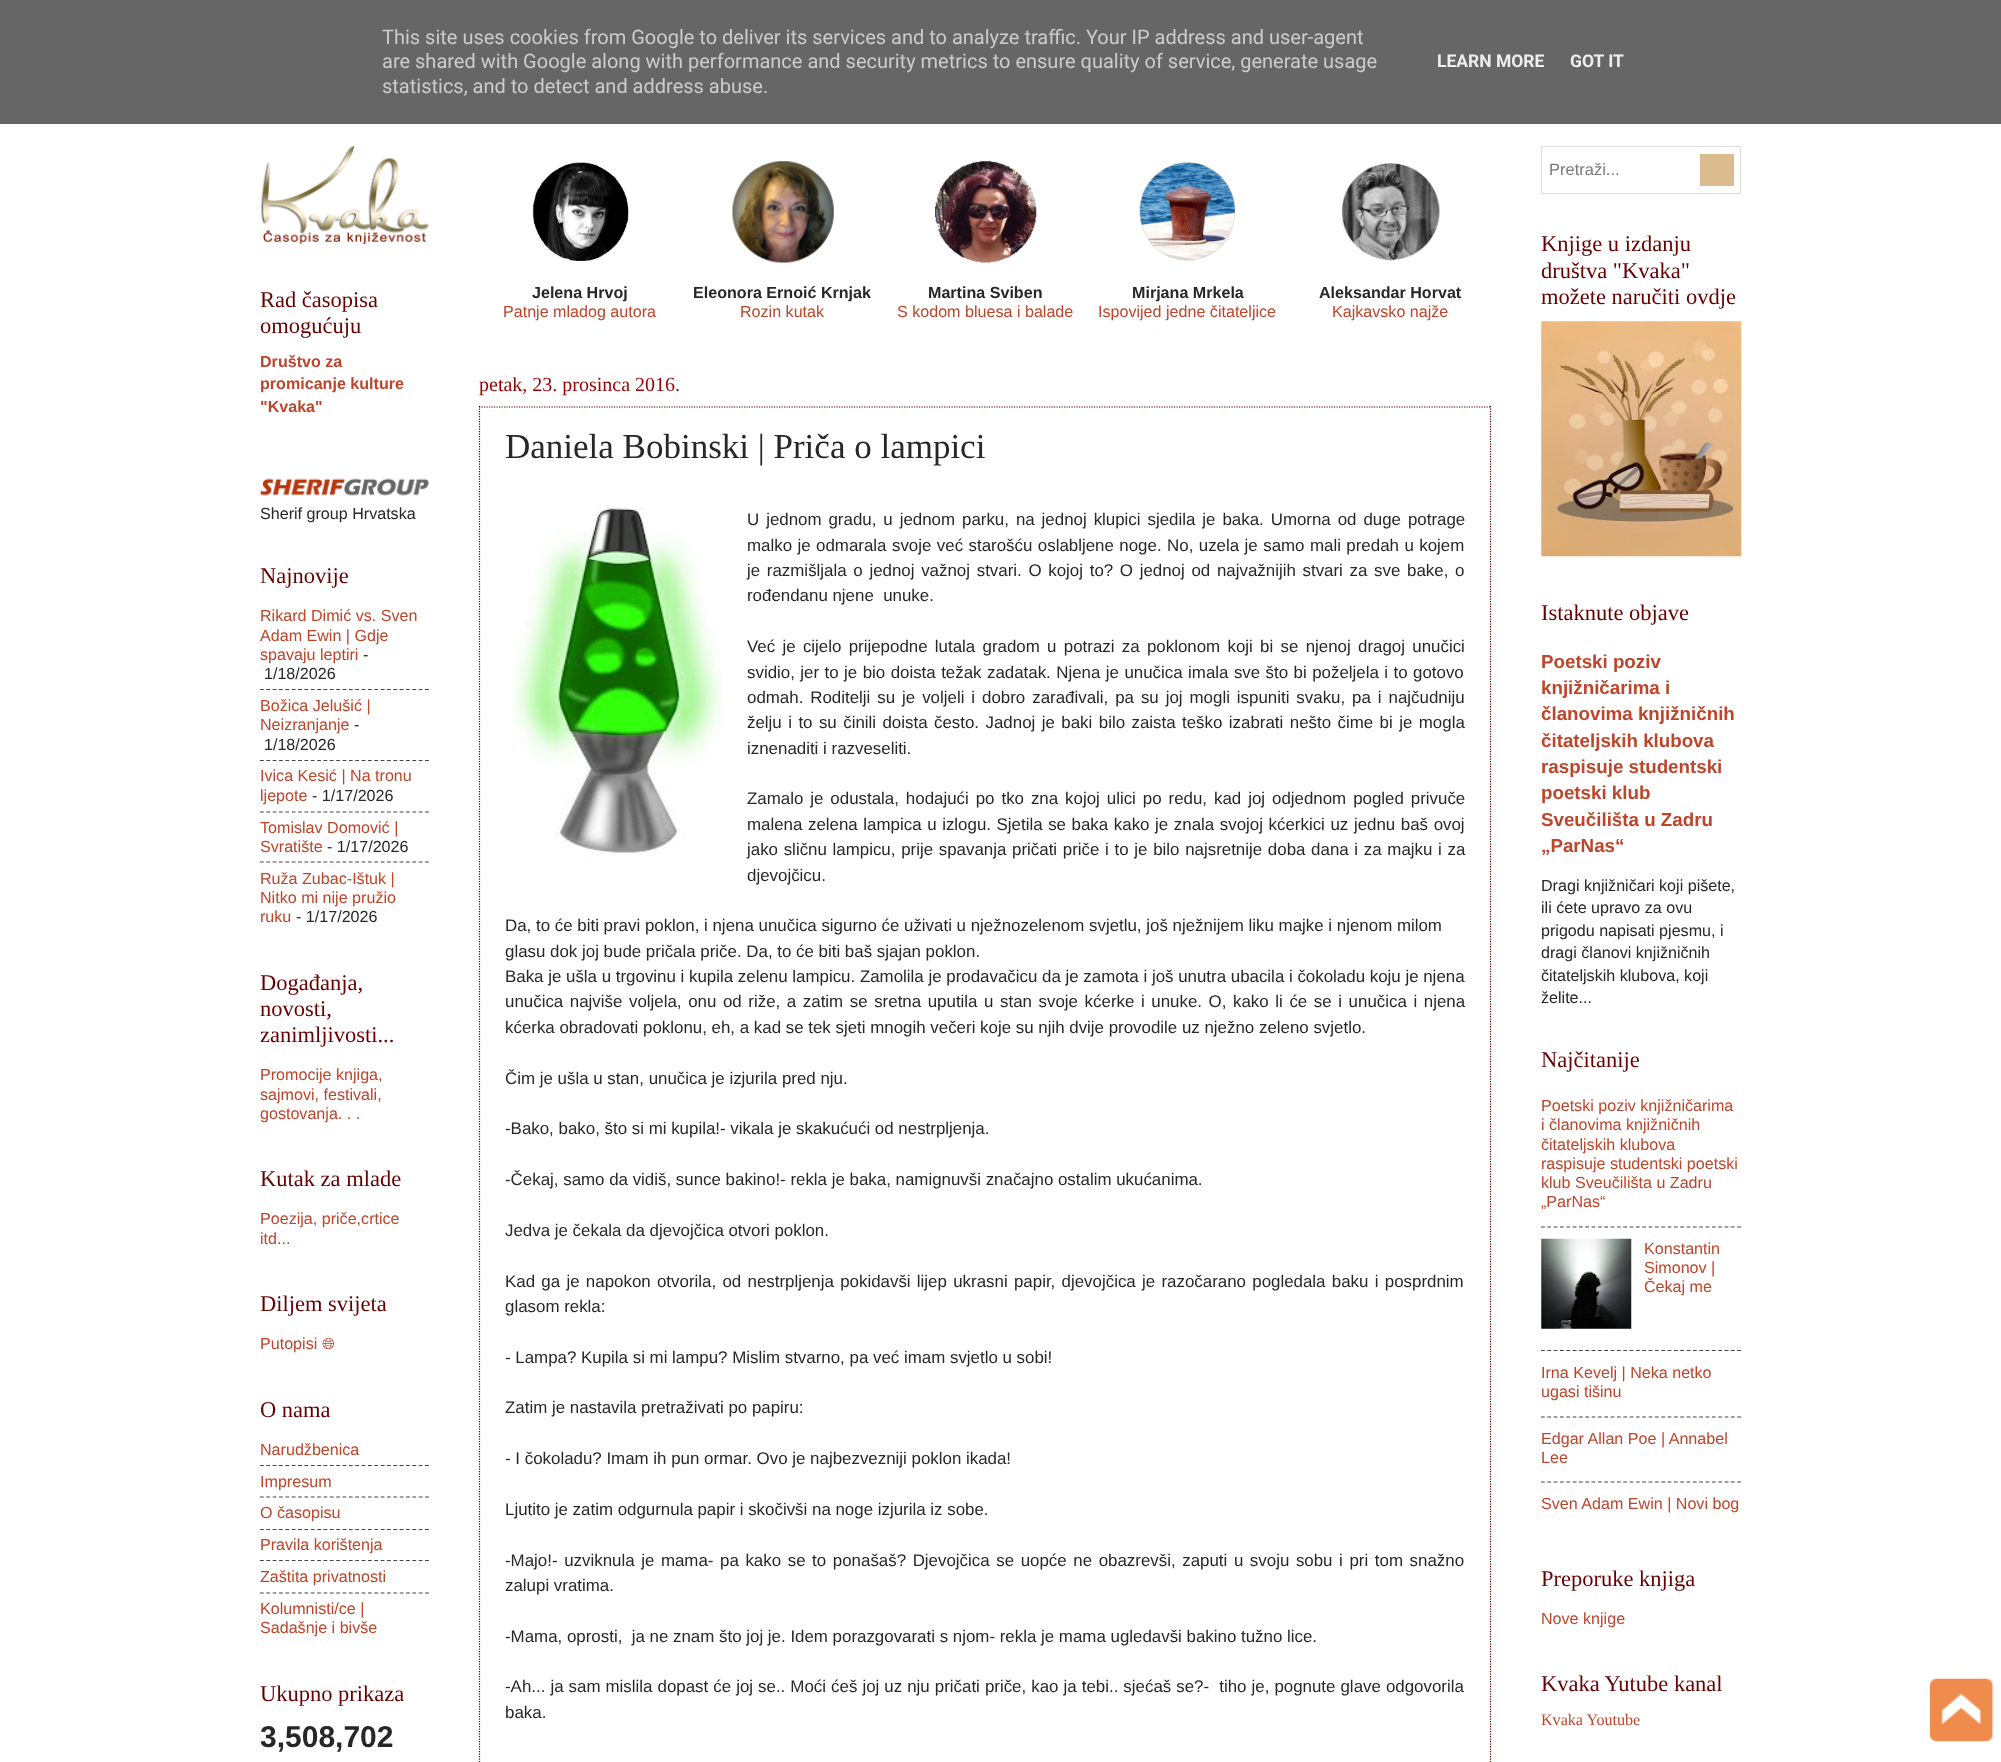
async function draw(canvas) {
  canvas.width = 2001;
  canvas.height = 1762;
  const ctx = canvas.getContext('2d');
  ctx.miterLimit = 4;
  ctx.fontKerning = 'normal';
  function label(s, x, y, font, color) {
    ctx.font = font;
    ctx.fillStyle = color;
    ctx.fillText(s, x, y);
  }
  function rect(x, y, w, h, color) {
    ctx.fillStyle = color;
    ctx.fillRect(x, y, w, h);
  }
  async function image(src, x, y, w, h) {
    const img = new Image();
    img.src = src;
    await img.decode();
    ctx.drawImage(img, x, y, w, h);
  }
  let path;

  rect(0, 0, 2001, 1762, '#fff');
  rect(0, 0, 2001, 124, '#666');
  label('This site uses cookies from Google to deliver its services and to analyze traffic. Your IP address and user-agent', 382, 44, '20px Roboto', '#ccc');
  label('are shared with Google along with performance and security metrics to ensure quality of service, generate usage', 382, 68, '20px Roboto', '#ccc');
  label('statistics, and to detect and address abuse.', 382, 93, '20px Roboto', '#ccc');
  label('LEARN MORE', 1437, 67, 'bold 17.5px Roboto', '#eee');
  label('GOT IT', 1570, 67, 'bold 17.5px Roboto', '#eee');
  await image('assets/img1.png', 260, 146, 169, 98);
  label('Rad časopisa', 260, 307, '22.5px Liberation Serif', '#600');
  label('omogućuju', 260, 333, '22.5px Liberation Serif', '#600');
  label('Društvo za', 260, 367, 'bold 16.1px Liberation Sans', '#be442a');
  label('promicanje kulture', 260, 389, 'bold 16.1px Liberation Sans', '#be442a');
  label('"Kvaka"', 260, 412, 'bold 16.1px Liberation Sans', '#be442a');
  await image('assets/img2.png', 260, 478, 169, 18);
  label('Sherif group Hrvatska', 260, 519, '16.1px Liberation Sans', '#282727');
  label('Najnovije', 260, 583, '22.5px Liberation Serif', '#600');
  label('Rikard Dimić vs. Sven', 260, 621, '16.1px Liberation Sans', '#be442a');
  label('Adam Ewin | Gdje', 260, 641, '16.1px Liberation Sans', '#be442a');
  label('spavaju leptiri', 260, 660, '16.1px Liberation Sans', '#be442a');
  label('-', 363, 660, '16.1px Liberation Sans', '#282727');
  label('1/18/2026', 264, 679, '16.1px Liberation Sans', '#282727');
  path = new Path2D('M260 689.5H429');
  ctx.strokeStyle = '#444';
  ctx.lineWidth = 1.2;
  ctx.setLineDash([3.75, 2.6]);
  ctx.stroke(path);
  label('Božica Jelušić |', 260, 711, '16.1px Liberation Sans', '#be442a');
  label('Neizranjanje', 260, 730, '16.1px Liberation Sans', '#be442a');
  label('-', 354, 730, '16.1px Liberation Sans', '#282727');
  label('1/18/2026', 264, 750, '16.1px Liberation Sans', '#282727');
  path = new Path2D('M260 760.5H429');
  ctx.stroke(path);
  label('Ivica Kesić | Na tronu', 260, 781, '16.1px Liberation Sans', '#be442a');
  label('ljepote', 260, 801, '16.1px Liberation Sans', '#be442a');
  label('- 1/17/2026', 312, 801, '16.1px Liberation Sans', '#282727');
  path = new Path2D('M260 812H429');
  ctx.stroke(path);
  label('Tomislav Domović |', 260, 833, '16.1px Liberation Sans', '#be442a');
  label('Svratište', 260, 852, '16.1px Liberation Sans', '#be442a');
  label('- 1/17/2026', 327, 852, '16.1px Liberation Sans', '#282727');
  path = new Path2D('M260 862H429');
  ctx.stroke(path);
  label('Ruža Zubac-Ištuk |', 260, 884, '16.1px Liberation Sans', '#be442a');
  label('Nitko mi nije pružio', 260, 903, '16.1px Liberation Sans', '#be442a');
  label('ruku', 260, 922, '16.1px Liberation Sans', '#be442a');
  label('- 1/17/2026', 296, 922, '16.1px Liberation Sans', '#282727');
  label('Događanja,', 260, 990, '22.5px Liberation Serif', '#600');
  label('novosti,', 260, 1016, '22.5px Liberation Serif', '#600');
  label('zanimljivosti...', 260, 1042, '22.5px Liberation Serif', '#600');
  label('Promocije knjiga,', 260, 1080, '16.1px Liberation Sans', '#be442a');
  label('sajmovi, festivali,', 260, 1100, '16.1px Liberation Sans', '#be442a');
  label('gostovanja. . .', 260, 1119, '16.1px Liberation Sans', '#be442a');
  label('Kutak za mlade', 260, 1186, '22.5px Liberation Serif', '#600');
  label('Poezija, priče,crtice', 260, 1224, '16.1px Liberation Sans', '#be442a');
  label('itd...', 260, 1244, '16.1px Liberation Sans', '#be442a');
  label('Diljem svijeta', 260, 1311, '22.5px Liberation Serif', '#600');
  label('Putopisi', 260, 1349, '16.1px Liberation Sans', '#be442a');
  label('🌐', 322, 1349, '16.1px FreeSans', '#be442a');
  label('O nama', 260, 1417, '22.5px Liberation Serif', '#600');
  label('Narudžbenica', 260, 1455, '16.1px Liberation Sans', '#be442a');
  path = new Path2D('M260 1465.5H429');
  ctx.stroke(path);
  label('Impresum', 260, 1487, '16.1px Liberation Sans', '#be442a');
  path = new Path2D('M260 1497H429');
  ctx.stroke(path);
  label('O časopisu', 260, 1518, '16.1px Liberation Sans', '#be442a');
  path = new Path2D('M260 1529.5H429');
  ctx.stroke(path);
  label('Pravila korištenja', 260, 1550, '16.1px Liberation Sans', '#be442a');
  path = new Path2D('M260 1560.5H429');
  ctx.stroke(path);
  label('Zaštita privatnosti', 260, 1582, '16.1px Liberation Sans', '#be442a');
  path = new Path2D('M260 1593H429');
  ctx.stroke(path);
  label('Kolumnisti/ce |', 260, 1614, '16.1px Liberation Sans', '#be442a');
  label('Sadašnje i bivše', 260, 1633, '16.1px Liberation Sans', '#be442a');
  label('Ukupno prikaza', 260, 1701, '22.5px Liberation Serif', '#600');
  label('3,508,702', 260, 1747, 'bold 30px Liberation Sans', '#282727');
  await image('assets/img3.png', 532, 162, 97, 99);
  label('Jelena Hrvoj', 532, 298, 'bold 16.1px Liberation Sans', '#282727');
  label('Patnje mladog autora', 503, 317, '16.1px Liberation Sans', '#be442a');
  await image('assets/img4.png', 732, 161, 102, 102);
  label('Eleonora Ernoić Krnjak', 693, 298, 'bold 16.1px Liberation Sans', '#282727');
  label('Rozin kutak', 740, 317, '16.1px Liberation Sans', '#be442a');
  await image('assets/img5.png', 935, 161, 102, 102);
  label('Martina Sviben', 928, 298, 'bold 16.1px Liberation Sans', '#282727');
  label('S kodom bluesa i balade', 897, 317, '16.1px Liberation Sans', '#be442a');
  await image('assets/img6.png', 1139, 162, 97, 99);
  label('Mirjana Mrkela', 1132, 298, 'bold 16.1px Liberation Sans', '#282727');
  label('Ispovijed jedne čitateljice', 1098, 317, '16.1px Liberation Sans', '#be442a');
  await image('assets/img7.png', 1341, 163, 99, 98);
  label('Aleksandar Horvat', 1319, 298, 'bold 16.1px Liberation Sans', '#282727');
  label('Kajkavsko najže', 1332, 317, '16.1px Liberation Sans', '#be442a');
  label('petak, 23. prosinca 2016.', 479, 391, '20px Liberation Serif', '#900');
  path = new Path2D('M479 407H1491');
  ctx.strokeStyle = '#600';
  ctx.setLineDash([1.25, 1.25]);
  ctx.stroke(path);
  path = new Path2D('M1490.5 406V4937.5');
  ctx.stroke(path);
  path = new Path2D('M479.5 406V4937.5');
  ctx.stroke(path);
  label('Daniela Bobinski | Priča o lampici', 505, 458, '35px Liberation Serif', '#282727');
  await image('assets/img8.png', 510, 507, 214, 350);
  ctx.wordSpacing = '2.25px';
  label('U jednom gradu, u jednom parku, na jednoj klupici sjedila je baka. Umorna od duge potrage', 747, 525, '16.9px Liberation Sans', '#282727');
  ctx.wordSpacing = '0.75px';
  label('malko je odmarala svoje već starošću oslabljene noge. No, uzela je samo mali predah u kojem', 747, 551, '16.9px Liberation Sans', '#282727');
  ctx.wordSpacing = '2px';
  label('je razmišljala o jednoj važnoj stvari. O kojoj to? O jednoj od najvažnijih stvari za sve bake, o', 747, 576, '16.9px Liberation Sans', '#282727');
  ctx.wordSpacing = '0px';
  label('rođendanu njene  unuke.', 747, 601, '16.9px Liberation Sans', '#282727');
  ctx.wordSpacing = '2.6px';
  label('Već je cijelo prijepodne lutala gradom u potrazi za poklonom koji bi se njenoj dragoj unučici', 747, 652, '16.9px Liberation Sans', '#282727');
  ctx.wordSpacing = '0.75px';
  label('svidio, jer to je bio doista težak zadatak. Njena je unučica imala sve što bi poželjela i to gotovo', 747, 678, '16.9px Liberation Sans', '#282727');
  ctx.wordSpacing = '2.25px';
  label('odmah. Roditelji su je voljeli i dobro zarađivali, pa su joj mogli ispuniti svaku, pa i najčudniju', 747, 703, '16.9px Liberation Sans', '#282727');
  ctx.wordSpacing = '1.75px';
  label('želju i to su činili doista često. Jadnoj je baki bilo zaista teško izabrati nešto čime bi je mogla', 747, 728, '16.9px Liberation Sans', '#282727');
  ctx.wordSpacing = '0px';
  label('iznenaditi i razveseliti.', 747, 754, '16.9px Liberation Sans', '#282727');
  ctx.wordSpacing = '2.25px';
  label('Zamalo je odustala, hodajući po tko zna kojoj ulici po redu, kad joj odjednom pogled privuče', 747, 804, '16.9px Liberation Sans', '#282727');
  ctx.wordSpacing = '0.9px';
  label('malena zelena lampica u izlogu. Sjetila se baka kako je znala svojoj kćerkici uz jednu baš ovoj', 747, 830, '16.9px Liberation Sans', '#282727');
  ctx.wordSpacing = '1px';
  label('jako sličnu lampicu, prije spavanja pričati priče i to je bilo najsretnije doba dana i za majku i za', 747, 855, '16.9px Liberation Sans', '#282727');
  ctx.wordSpacing = '0px';
  label('djevojčicu.', 747, 881, '16.9px Liberation Sans', '#282727');
  label('Da, to će biti pravi poklon, i njena unučica sigurno će uživati u nježnozelenom svjetlu, još nježnijem liku majke i njenom milom', 505, 931, '16.9px Liberation Sans', '#282727');
  label('glasu dok joj bude pričala priče. Da, to će biti baš sjajan poklon.', 505, 957, '16.9px Liberation Sans', '#282727');
  label('Baka je ušla u trgovinu i kupila zelenu lampicu. Zamolila je prodavačicu da je zamota i još unutra ubacila i čokoladu koju je njena', 505, 982, '16.9px Liberation Sans', '#282727');
  ctx.wordSpacing = '1.9px';
  label('unučica najviše voljela, onu od riže, a zatim se sretna uputila u stan svoje kćerke i unuke. O, kako li će se i unučica i njena', 505, 1007, '16.9px Liberation Sans', '#282727');
  ctx.wordSpacing = '0px';
  label('kćerka obradovati poklonu, eh, a kad se tek sjeti mnogih večeri koje su njih dvije provodile uz nježno zeleno svjetlo.', 505, 1033, '16.9px Liberation Sans', '#282727');
  label('Čim je ušla u stan, unučica je izjurila pred nju.', 505, 1084, '16.9px Liberation Sans', '#282727');
  label('-Bako, bako, što si mi kupila!- vikala je skakućući od nestrpljenja.', 505, 1134, '16.9px Liberation Sans', '#282727');
  label('-Čekaj, samo da vidiš, sunce bakino!- rekla je baka, namignuvši značajno ostalim ukućanima.', 505, 1185, '16.9px Liberation Sans', '#282727');
  label('Jedva je čekala da djevojčica otvori poklon.', 505, 1236, '16.9px Liberation Sans', '#282727');
  ctx.wordSpacing = '1.6px';
  label('Kad ga je napokon otvorila, od nestrpljenja pokidavši lijep ukrasni papir, djevojčica je razočarano pogledala baku i posprdnim', 505, 1287, '16.9px Liberation Sans', '#282727');
  ctx.wordSpacing = '0px';
  label('glasom rekla:', 505, 1312, '16.9px Liberation Sans', '#282727');
  label('- Lampa? Kupila si mi lampu? Mislim stvarno, pa već imam svjetlo u sobi!', 505, 1363, '16.9px Liberation Sans', '#282727');
  label('Zatim je nastavila pretraživati po papiru:', 505, 1413, '16.9px Liberation Sans', '#282727');
  label('- I čokoladu? Imam ih pun ormar. Ovo je najbezvezniji poklon ikada!', 505, 1464, '16.9px Liberation Sans', '#282727');
  label('Ljutito je zatim odgurnula papir i skočivši na noge izjurila iz sobe.', 505, 1515, '16.9px Liberation Sans', '#282727');
  ctx.wordSpacing = '1.9px';
  label('-Majo!- uzviknula je mama- pa kako se to ponašaš? Djevojčica se uopće ne obazrevši, zaputi u svoju sobu i pri tom snažno', 505, 1566, '16.9px Liberation Sans', '#282727');
  ctx.wordSpacing = '0px';
  label('zalupi vratima.', 505, 1591, '16.9px Liberation Sans', '#282727');
  label('-Mama, oprosti,  ja ne znam što joj je. Idem porazgovarati s njom- rekla je mama ugledavši bakino tužno lice.', 505, 1642, '16.9px Liberation Sans', '#282727');
  ctx.wordSpacing = '0.35px';
  label('-Ah... ja sam mislila dopast će joj se.. Moći ćeš joj uz nju pričati priče, kao ja tebi.. sjećaš se?-  tiho je, pognute glave odgovorila', 505, 1692, '16.9px Liberation Sans', '#282727');
  ctx.wordSpacing = '0px';
  label('baka.', 505, 1718, '16.9px Liberation Sans', '#282727');
  ctx.strokeStyle = '#ddd';
  ctx.lineWidth = 1;
  ctx.setLineDash([]);
  ctx.strokeRect(1541.5, 146.5, 199, 47);
  label('Pretraži...', 1549, 175, '16.5px Liberation Sans', '#7c7a7a');
  rect(1700, 154, 34, 32, '#dbbc8e');
  label('Knjige u izdanju', 1541, 251, '22.5px Liberation Serif', '#600');
  label('društva "Kvaka"', 1541, 278, '22.5px Liberation Serif', '#600');
  label('možete naručiti ovdje', 1541, 304, '22.5px Liberation Serif', '#600');
  await image('assets/img9.png', 1541, 321, 201, 236);
  label('Istaknute objave', 1541, 620, '22.5px Liberation Serif', '#600');
  label('Poetski poziv', 1541, 668, 'bold 18.75px Liberation Sans', '#be442a');
  label('knjižničarima i', 1541, 694, 'bold 18.75px Liberation Sans', '#be442a');
  label('članovima knjižničnih', 1541, 720, 'bold 18.75px Liberation Sans', '#be442a');
  label('čitateljskih klubova', 1541, 747, 'bold 18.75px Liberation Sans', '#be442a');
  label('raspisuje studentski', 1541, 773, 'bold 18.75px Liberation Sans', '#be442a');
  label('poetski klub', 1541, 799, 'bold 18.75px Liberation Sans', '#be442a');
  label('Sveučilišta u Zadru', 1541, 826, 'bold 18.75px Liberation Sans', '#be442a');
  label('„ParNas“', 1541, 852, 'bold 18.75px Liberation Sans', '#be442a');
  label('Dragi knjižničari koji pišete,', 1541, 891, '16.1px Liberation Sans', '#282727');
  label('ili ćete upravo za ovu', 1541, 913, '16.1px Liberation Sans', '#282727');
  label('prigodu napisati pjesmu, i', 1541, 936, '16.1px Liberation Sans', '#282727');
  label('dragi članovi knjižničnih', 1541, 958, '16.1px Liberation Sans', '#282727');
  label('čitateljskih klubova, koji', 1541, 981, '16.1px Liberation Sans', '#282727');
  label('želite...', 1541, 1003, '16.1px Liberation Sans', '#282727');
  label('Najčitanije', 1541, 1067, '22.5px Liberation Serif', '#600');
  label('Poetski poziv knjižničarima', 1541, 1111, '16.1px Liberation Sans', '#be442a');
  label('i članovima knjižničnih', 1541, 1130, '16.1px Liberation Sans', '#be442a');
  label('čitateljskih klubova', 1541, 1150, '16.1px Liberation Sans', '#be442a');
  label('raspisuje studentski poetski', 1541, 1169, '16.1px Liberation Sans', '#be442a');
  label('klub Sveučilišta u Zadru', 1541, 1188, '16.1px Liberation Sans', '#be442a');
  label('„ParNas“', 1541, 1207, '16.1px Liberation Sans', '#be442a');
  path = new Path2D('M1541 1227H1741');
  ctx.strokeStyle = '#444';
  ctx.lineWidth = 1.2;
  ctx.setLineDash([3.75, 2.58]);
  ctx.stroke(path);
  await image('assets/img10.png', 1541, 1238, 91, 91);
  label('Konstantin', 1644, 1254, '16.1px Liberation Sans', '#be442a');
  label('Simonov |', 1644, 1273, '16.1px Liberation Sans', '#be442a');
  label('Čekaj me', 1644, 1292, '16.1px Liberation Sans', '#be442a');
  path = new Path2D('M1541 1350.5H1741');
  ctx.stroke(path);
  label('Irna Kevelj | Neka netko', 1541, 1378, '16.1px Liberation Sans', '#be442a');
  label('ugasi tišinu', 1541, 1397, '16.1px Liberation Sans', '#be442a');
  path = new Path2D('M1541 1417H1741');
  ctx.stroke(path);
  label('Edgar Allan Poe | Annabel', 1541, 1444, '16.1px Liberation Sans', '#be442a');
  label('Lee', 1541, 1463, '16.1px Liberation Sans', '#be442a');
  path = new Path2D('M1541 1482H1741');
  ctx.stroke(path);
  label('Sven Adam Ewin | Novi bog', 1541, 1509, '16.1px Liberation Sans', '#be442a');
  label('Preporuke knjiga', 1541, 1586, '22.5px Liberation Serif', '#600');
  label('Nove knjige', 1541, 1624, '16.1px Liberation Sans', '#be442a');
  label('Kvaka Yutube kanal', 1541, 1691, '22.5px Liberation Serif', '#600');
  label('Kvaka Youtube', 1541, 1725, '16.1px Liberation Serif', '#be442a');
  await image('assets/img11.png', 1930, 1678, 63, 64);
}

draw(document.querySelector('canvas'));
